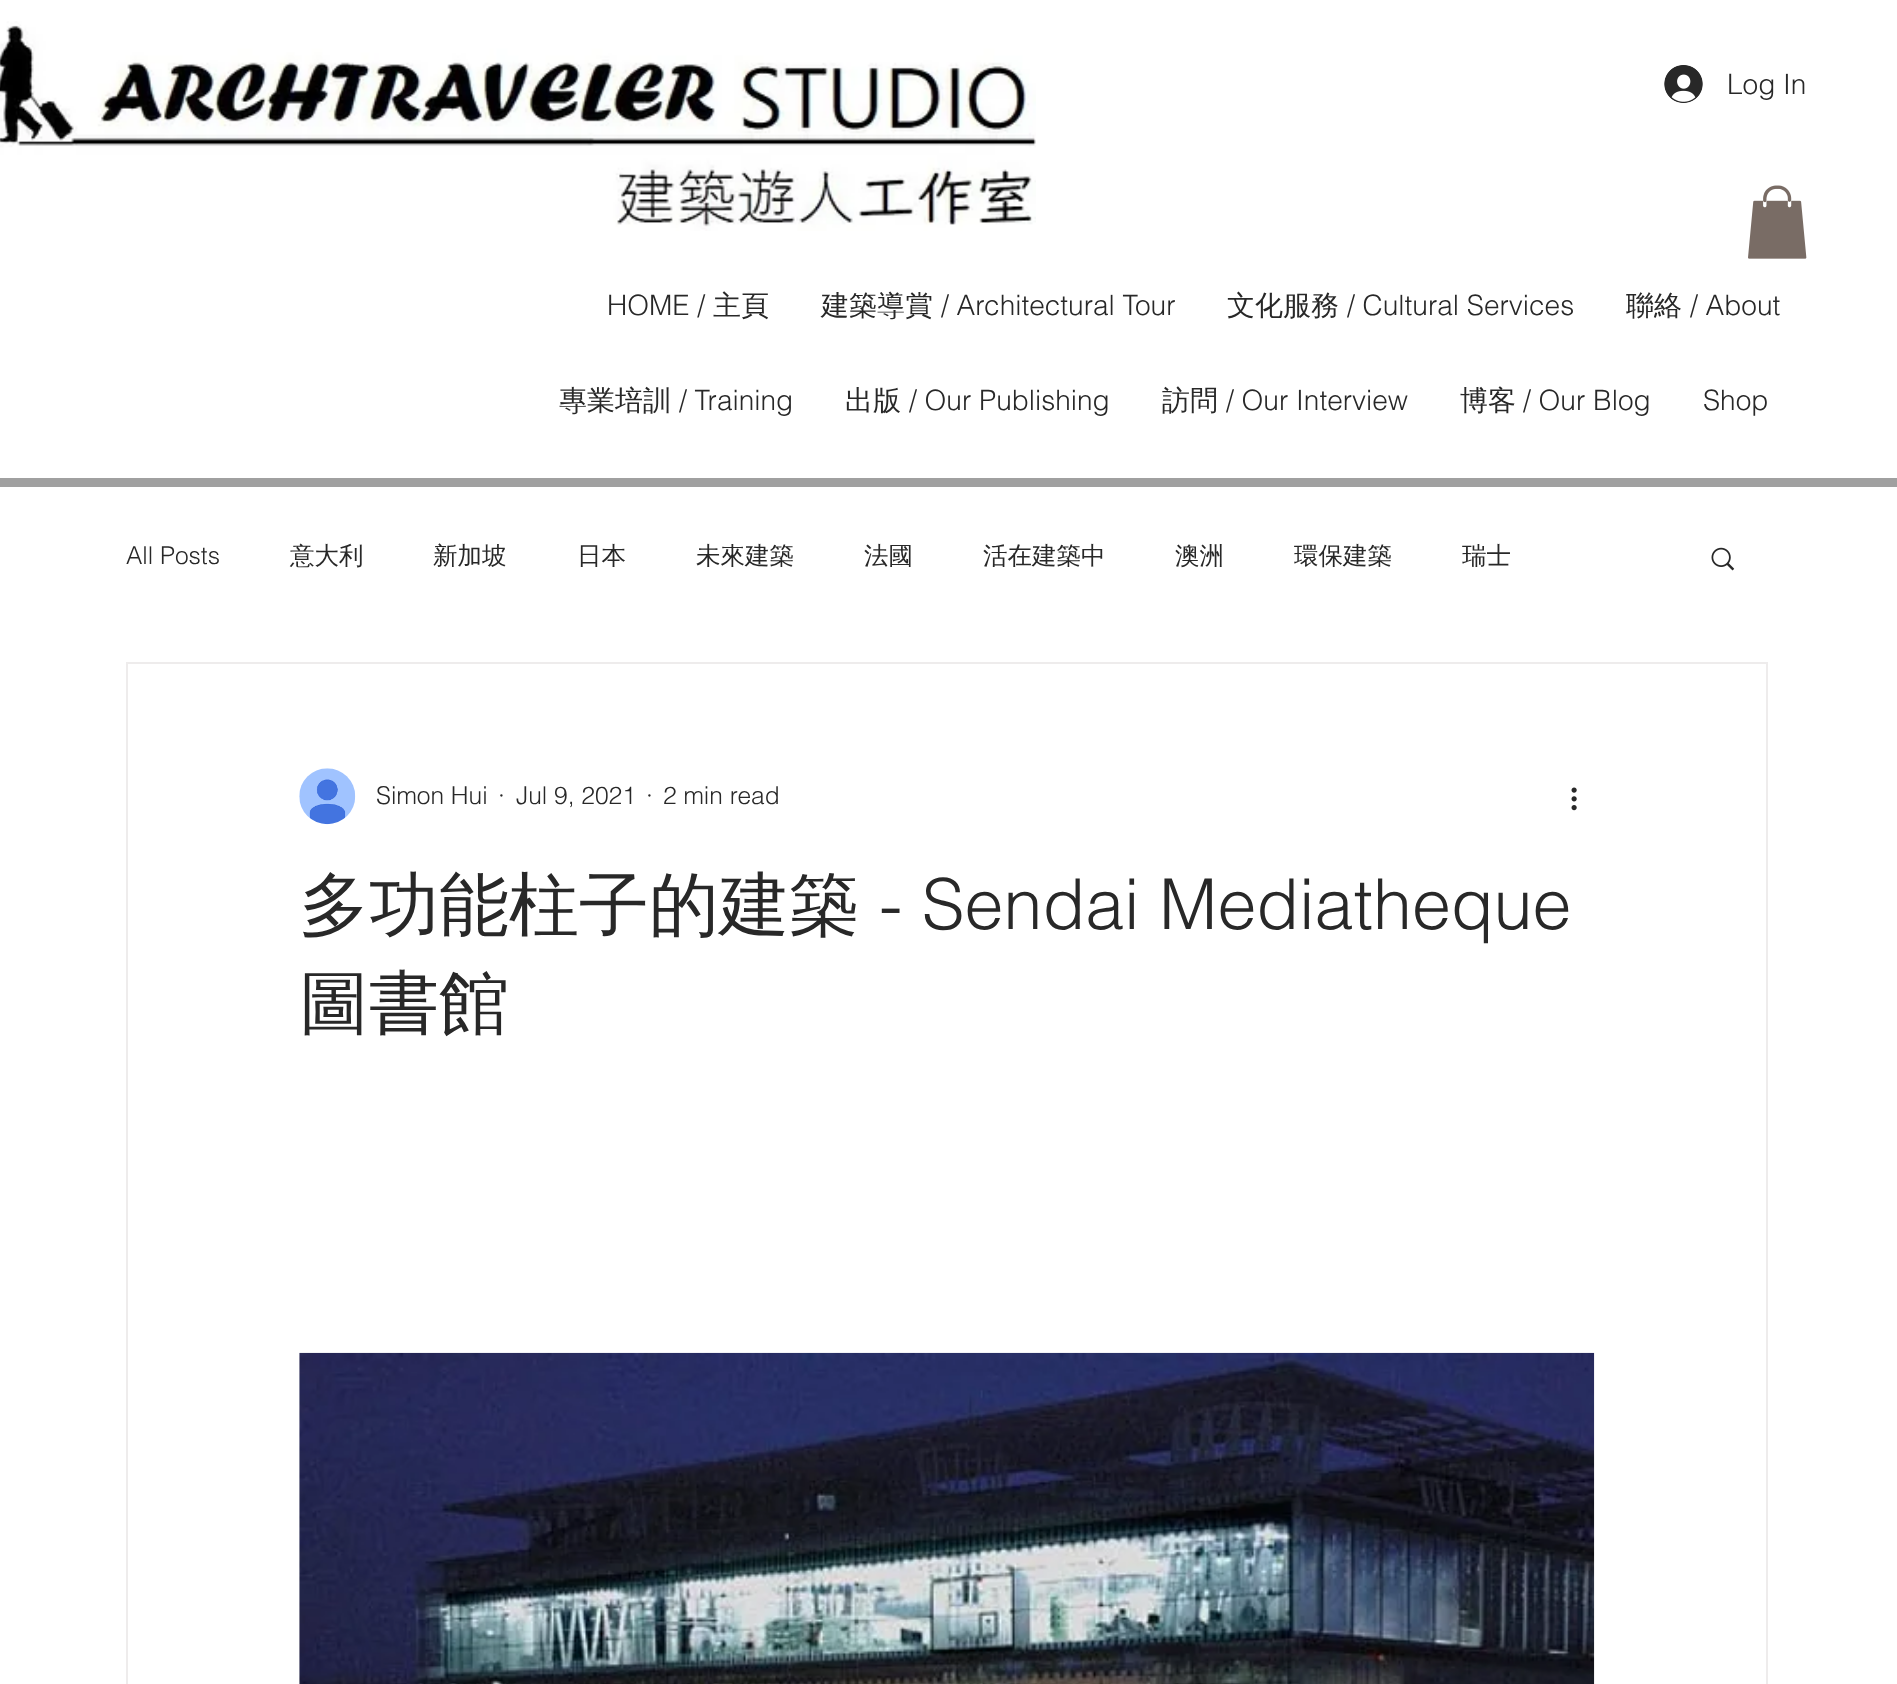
async function draw(canvas) {
  canvas.width = 1897;
  canvas.height = 1684;
  const ctx = canvas.getContext('2d');
  ctx.miterLimit = 4;
  ctx.fontKerning = 'normal';
  function label(s, x, y, font, color) {
    ctx.font = font;
    ctx.fillStyle = color;
    ctx.fillText(s, x, y);
  }
  function rect(x, y, w, h, color) {
    ctx.fillStyle = color;
    ctx.fillRect(x, y, w, h);
  }
  async function image(src, x, y, w, h) {
    const img = new Image();
    img.src = src;
    await img.decode();
    ctx.drawImage(img, x, y, w, h);
  }

  rect(0, 0, 1897, 1684, '#fff');
  await image('assets/img1.png', 0, 21, 1036, 210);
  await image('assets/img2.png', 1664, 65, 39, 38);
  label('Log In', 1727, 94, '300 28px helvetica', '#282828');
  label('HOME /', 607, 315, '300 28px helvetica', '#282828');
  label('主頁', 713, 315, '500 28px WenQuanYi Zen Hei', '#282828');
  label('建築導賞', 821, 315, '500 28px WenQuanYi Zen Hei', '#282828');
  label('/ Architectural Tour', 941, 315, '300 28px helvetica', '#282828');
  label('文化服務', 1227, 315, '500 28px WenQuanYi Zen Hei', '#282828');
  label('/ Cultural Services', 1347, 315, '300 28px helvetica', '#282828');
  label('聯絡', 1626, 315, '500 28px WenQuanYi Zen Hei', '#282828');
  label('/ About', 1690, 315, '300 28px helvetica', '#282828');
  label('專業培訓', 559, 410, '500 28px WenQuanYi Zen Hei', '#282828');
  label('/ Training', 679, 410, '300 28px helvetica', '#282828');
  label('出版', 845, 410, '500 28px WenQuanYi Zen Hei', '#282828');
  label('/ Our Publishing', 909, 410, '300 28px helvetica', '#282828');
  label('訪問', 1162, 410, '500 28px WenQuanYi Zen Hei', '#282828');
  label('/ Our Interview', 1226, 410, '300 28px helvetica', '#282828');
  label('博客', 1460, 410, '500 28px WenQuanYi Zen Hei', '#282828');
  label('/ Our Blog', 1523, 410, '300 28px helvetica', '#282828');
  label('Shop', 1703, 410, '300 28px helvetica', '#282828');
  await image('assets/img3.png', 1748, 185, 59, 74);
  rect(0, 478, 1897, 9, '#a0a0a0');
  label('All Posts', 126, 564, '300 24.5px helvetica', '#282828');
  label('意大利', 290, 564, '500 24.5px WenQuanYi Zen Hei', '#282828');
  label('新加坡', 433, 564, '500 24.5px WenQuanYi Zen Hei', '#282828');
  label('日本', 577, 564, '500 24.5px WenQuanYi Zen Hei', '#282828');
  label('未來建築', 696, 564, '500 24.5px WenQuanYi Zen Hei', '#282828');
  label('法國', 864, 564, '500 24.5px WenQuanYi Zen Hei', '#282828');
  label('活在建築中', 983, 564, '500 24.5px WenQuanYi Zen Hei', '#282828');
  label('澳洲', 1175, 564, '500 24.5px WenQuanYi Zen Hei', '#282828');
  label('環保建築', 1294, 564, '500 24.5px WenQuanYi Zen Hei', '#282828');
  label('瑞士', 1462, 564, '500 24.5px WenQuanYi Zen Hei', '#282828');
  await image('assets/img4.png', 1711, 547, 24, 24);
  ctx.strokeStyle = '#eeecec';
  ctx.lineWidth = 2;
  ctx.strokeRect(127, 663, 1640, 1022);
  await image('assets/img5.png', 299, 768, 57, 57);
  label('Simon Hui', 376, 804, '300 24.5px helvetica', '#282828');
  label('·', 498, 804, '300 24.5px helvetica', '#282828');
  label('Jul 9, 2021', 516, 804, '300 24.5px helvetica', '#282828');
  label('·', 646, 804, '300 24.5px helvetica', '#282828');
  label('2 min read', 663, 804, '300 24.5px helvetica', '#282828');
  await image('assets/img6.png', 1571, 787, 6, 24);
  label('多功能柱子的建築', 299, 929, '500 70px WenQuanYi Zen Hei', '#282828');
  label('- Sendai Mediatheque', 879, 929, '300 70px helvetica', '#282828');
  label('圖書館', 299, 1027, '500 70px WenQuanYi Zen Hei', '#282828');
  await image('assets/img7.png', 299, 1352, 1296, 332);
}

draw(document.querySelector('canvas'));
